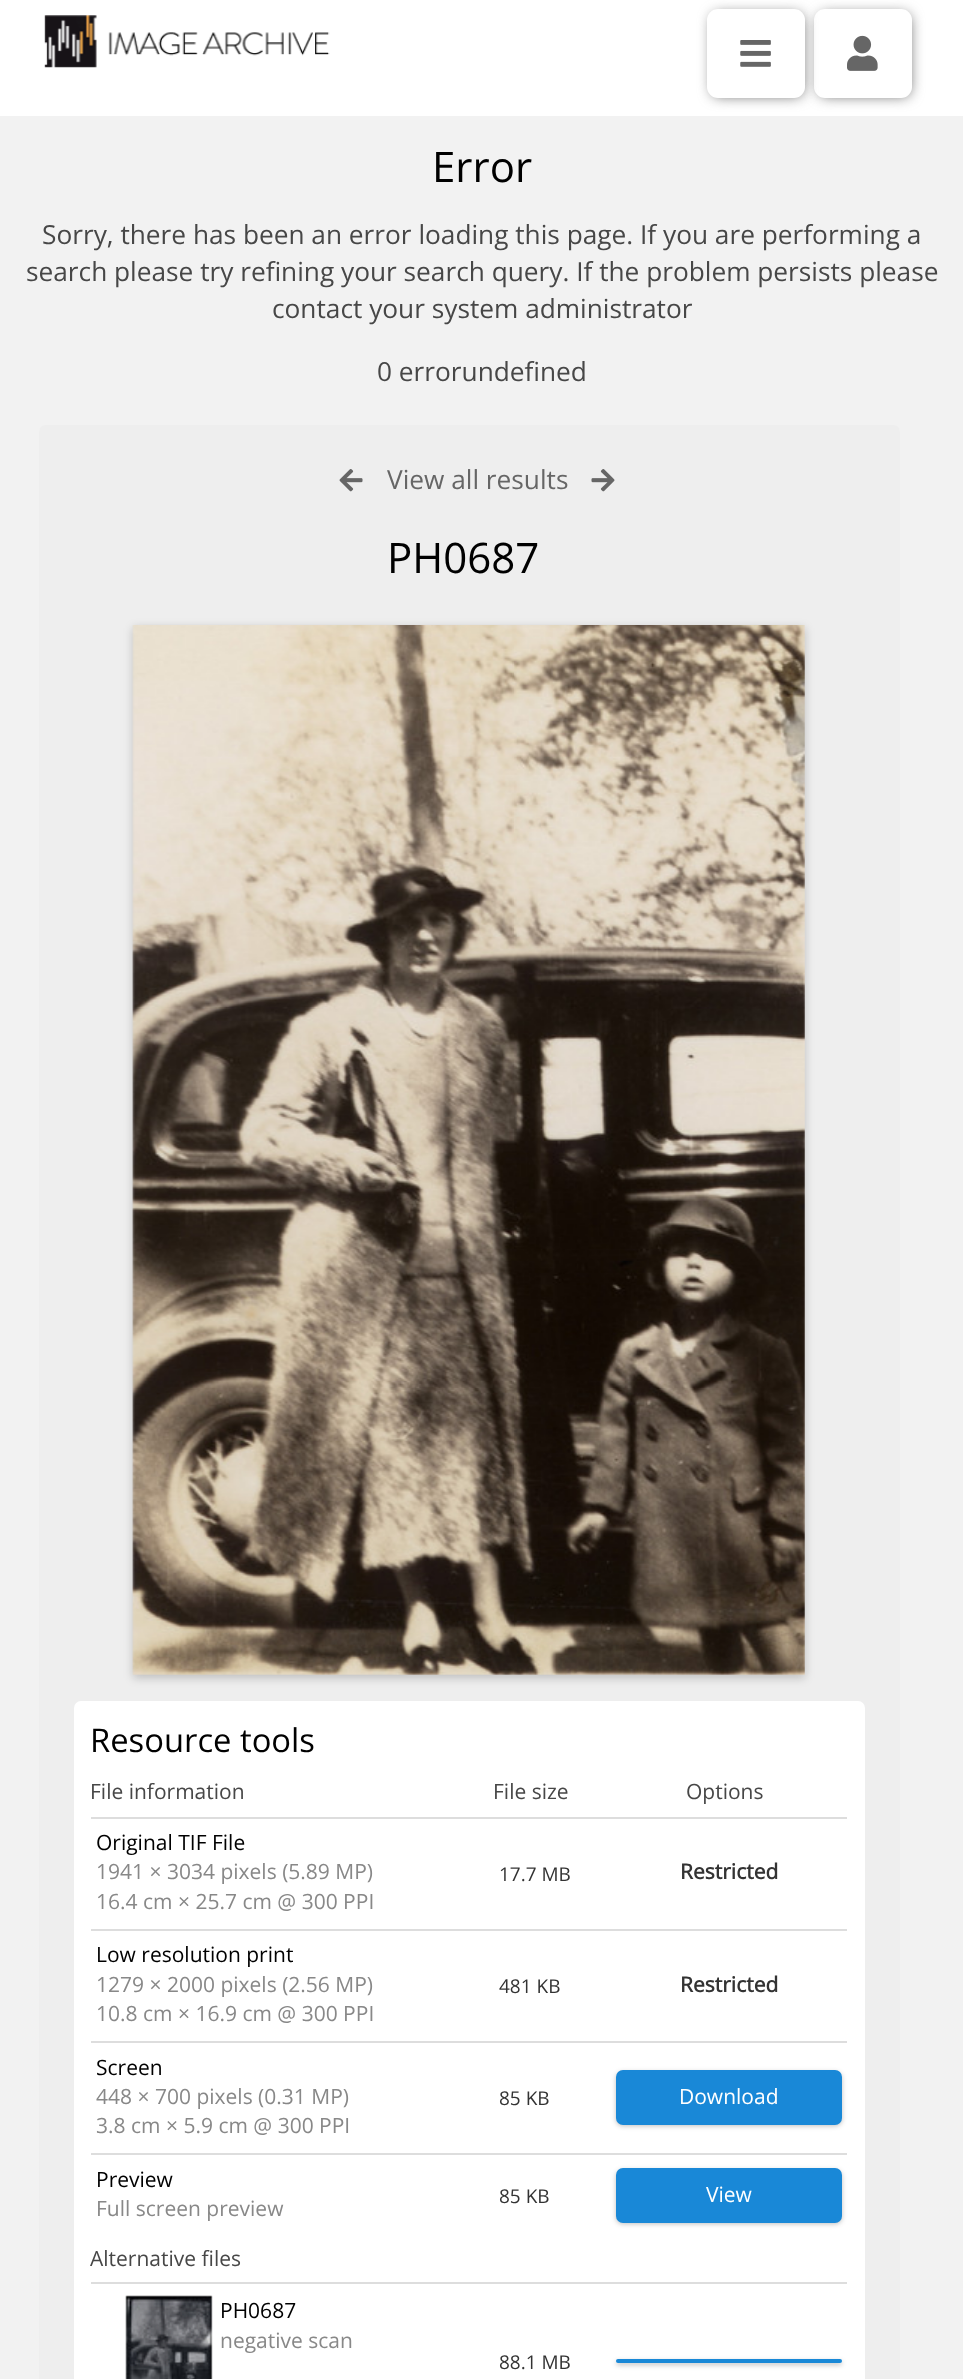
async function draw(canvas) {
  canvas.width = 963;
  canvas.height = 2379;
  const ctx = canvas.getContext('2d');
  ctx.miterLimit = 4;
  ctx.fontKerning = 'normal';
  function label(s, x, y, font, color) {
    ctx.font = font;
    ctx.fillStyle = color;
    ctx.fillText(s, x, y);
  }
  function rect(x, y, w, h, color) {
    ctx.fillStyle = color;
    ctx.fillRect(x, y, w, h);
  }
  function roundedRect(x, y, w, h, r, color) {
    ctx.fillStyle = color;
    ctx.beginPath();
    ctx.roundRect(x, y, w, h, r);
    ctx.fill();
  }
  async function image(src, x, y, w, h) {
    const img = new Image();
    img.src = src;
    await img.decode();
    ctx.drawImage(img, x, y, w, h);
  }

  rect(0, 0, 963, 2379, '#f2f2f2');
  rect(0, 0, 963, 116, '#fff');
  await image('assets/img1.png', 44, 15, 286, 53);
  ctx.fillStyle = '#666';
  ctx.filter = 'blur(7px)';
  ctx.beginPath();
  ctx.roundRect(819, 14, 91, 82, 7);
  ctx.fill();
  ctx.filter = 'none';
  roundedRect(814, 9, 98, 89, 11, '#fff');
  ctx.fillStyle = '#666';
  ctx.filter = 'blur(7px)';
  ctx.beginPath();
  ctx.roundRect(712, 14, 91, 82, 7);
  ctx.fill();
  ctx.filter = 'none';
  roundedRect(707, 9, 98, 89, 11, '#fff');
  await image('assets/img2.png', 740, 40, 31, 27);
  await image('assets/img3.png', 847, 35, 31, 36);
  label('Error', 432, 182, '42px Open Sans', '#000');
  label('Sorry, there has been an error loading this page. If you are performing a', 42, 244, '26.25px Open Sans', '#474747');
  label('search please try refining your search query. If the problem persists please', 26, 281, '26.25px Open Sans', '#474747');
  label('contact your system administrator', 272, 318, '26.25px Open Sans', '#474747');
  label('0 errorundefined', 377, 381, '26.25px Open Sans', '#474747');
  roundedRect(39, 425, 861, 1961, 7, '#eee');
  await image('assets/img4.png', 339, 469, 24, 23);
  label('View all results', 387, 489, '26.25px Open Sans', '#666');
  await image('assets/img5.png', 591, 469, 24, 23);
  label('PH0687', 387, 573, '42px Open Sans', '#000');
  ctx.fillStyle = '#00000033';
  ctx.filter = 'blur(5px)';
  ctx.beginPath();
  ctx.rect(133, 628, 672, 1050);
  ctx.fill();
  ctx.filter = 'none';
  await image('assets/img6.png', 132, 625, 673, 1050);
  roundedRect(74, 1701, 791, 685, 7, '#fff');
  label('Resource tools', 90, 1752, '32.75px Open Sans', '#000');
  label('File information', 90, 1799, '21px Open Sans', '#474747');
  label('File size', 493, 1799, '21px Open Sans', '#474747');
  label('Options', 686, 1799, '21px Open Sans', '#474747');
  rect(91, 1817, 756, 2, '#ddd');
  label('Original TIF File', 96, 1850, '21px Open Sans', '#000');
  label('1941 × 3034 pixels (5.89 MP)', 96, 1879, '21px Open Sans', '#888');
  label('16.4 cm × 25.7 cm @ 300 PPI', 96, 1909, '21px Open Sans', '#888');
  label('17.7 MB', 499, 1881, '19px Open Sans', '#333');
  label('Restricted', 680, 1879, 'bold 21px Open Sans', '#333');
  rect(91, 1929, 756, 2, '#ddd');
  label('Low resolution print', 96, 1962, '21px Open Sans', '#000');
  label('1279 × 2000 pixels (2.56 MP)', 96, 1992, '21px Open Sans', '#888');
  label('10.8 cm × 16.9 cm @ 300 PPI', 96, 2021, '21px Open Sans', '#888');
  label('481 KB', 499, 1993, '19px Open Sans', '#333');
  label('Restricted', 680, 1992, 'bold 21px Open Sans', '#333');
  rect(91, 2041, 756, 2, '#ddd');
  label('Screen', 96, 2075, '21px Open Sans', '#000');
  label('448 × 700 pixels (0.31 MP)', 96, 2104, '21px Open Sans', '#888');
  label('3.8 cm × 5.9 cm @ 300 PPI', 96, 2133, '21px Open Sans', '#888');
  label('85 KB', 499, 2105, '19px Open Sans', '#333');
  ctx.fillStyle = '#00000040';
  ctx.filter = 'blur(2.5px)';
  ctx.beginPath();
  ctx.roundRect(616, 2072, 226, 54, 7);
  ctx.fill();
  ctx.filter = 'none';
  roundedRect(616, 2070, 226, 55, 7, '#1988d7');
  label('Download', 679, 2104, '21px Open Sans', '#fff');
  rect(91, 2153, 756, 2, '#ddd');
  label('Preview', 96, 2187, '21px Open Sans', '#000');
  label('Full screen preview', 96, 2216, '21px Open Sans', '#888');
  label('85 KB', 499, 2203, '19px Open Sans', '#333');
  ctx.fillStyle = '#00000040';
  ctx.filter = 'blur(2.5px)';
  ctx.beginPath();
  ctx.roundRect(616, 2170, 226, 54, 7);
  ctx.fill();
  ctx.filter = 'none';
  roundedRect(616, 2168, 226, 55, 7, '#1988d7');
  label('View', 706, 2202, '21px Open Sans', '#fff');
  label('Alternative files', 90, 2266, '21px Open Sans', '#474747');
  rect(91, 2282, 756, 2, '#ddd');
  await image('assets/img7.png', 125, 2295, 88, 84);
  label('PH0687', 220, 2318, '21px Open Sans', '#000');
  label('negative scan', 220, 2348, '21px Open Sans', '#888');
  label('88.1 MB', 499, 2369, '19px Open Sans', '#333');
  ctx.fillStyle = '#00000040';
  ctx.filter = 'blur(2.5px)';
  ctx.beginPath();
  ctx.roundRect(616, 2361, 226, 4, 2);
  ctx.fill();
  ctx.filter = 'none';
  roundedRect(616, 2359, 226, 4, 2, '#1988d7');
}

draw(document.querySelector('canvas'));
